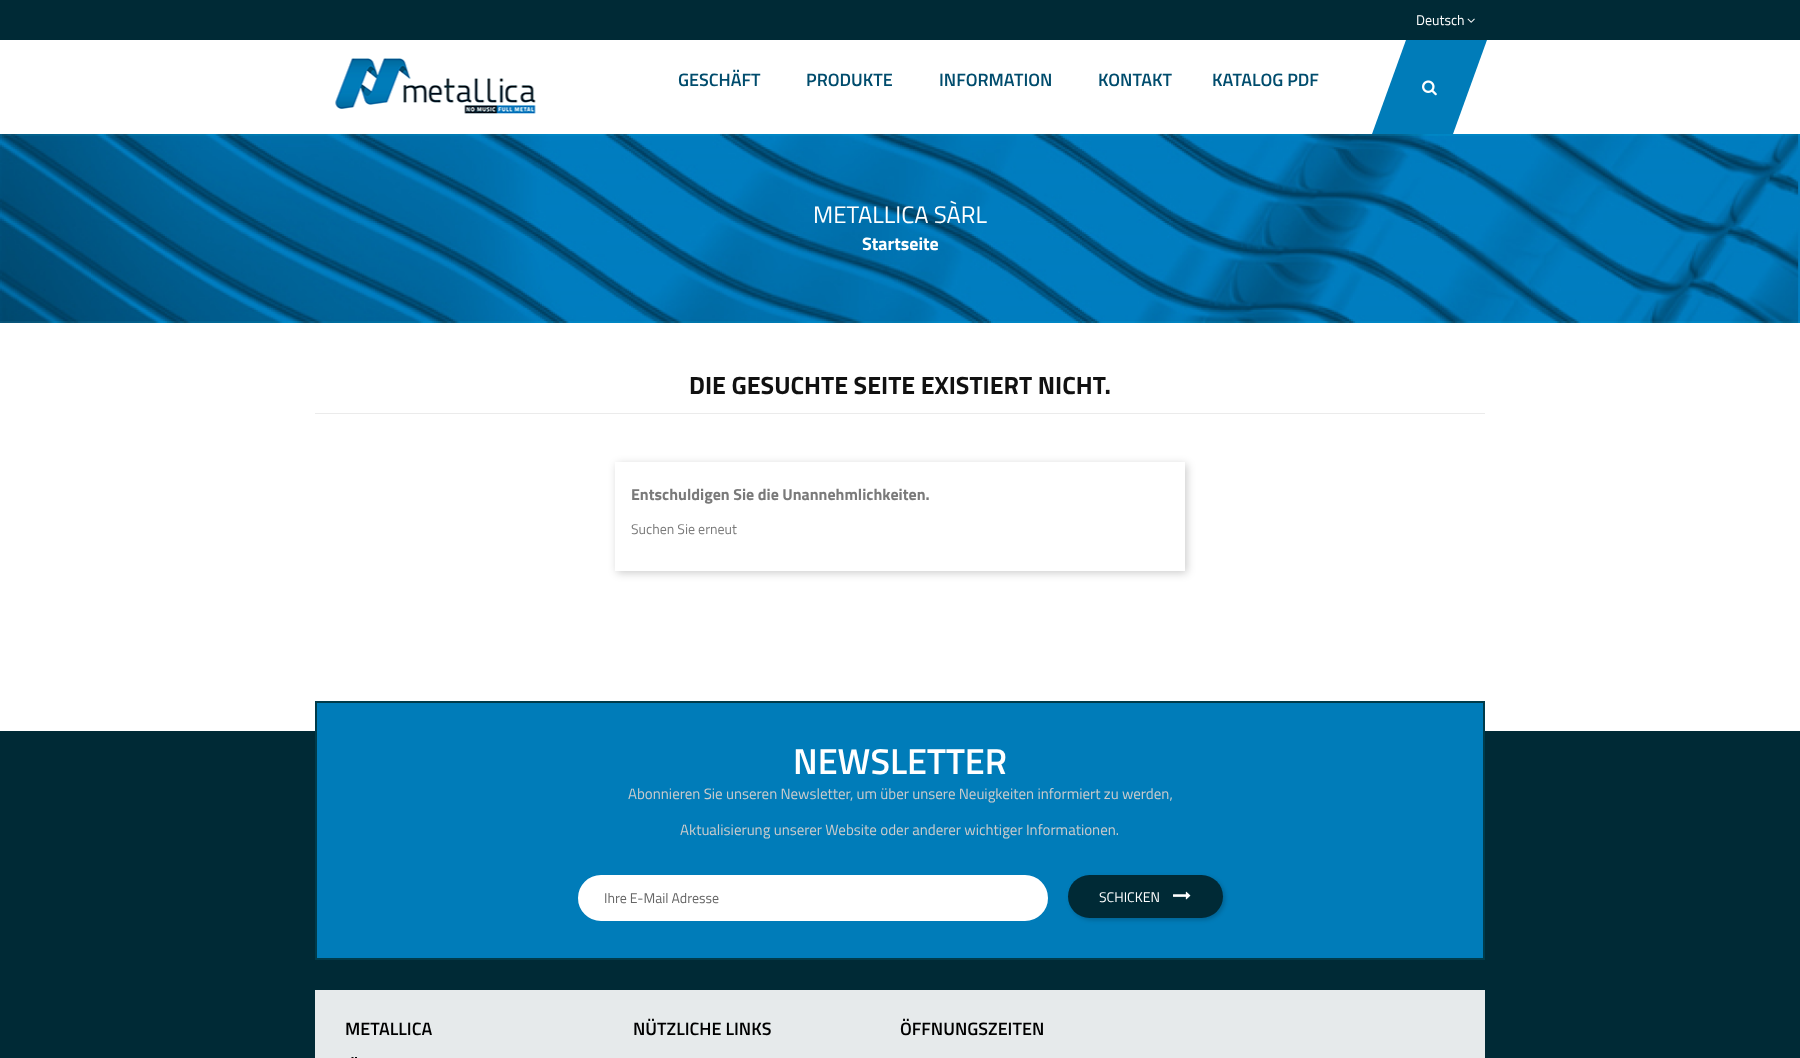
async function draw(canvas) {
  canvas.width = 1800;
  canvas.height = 1058;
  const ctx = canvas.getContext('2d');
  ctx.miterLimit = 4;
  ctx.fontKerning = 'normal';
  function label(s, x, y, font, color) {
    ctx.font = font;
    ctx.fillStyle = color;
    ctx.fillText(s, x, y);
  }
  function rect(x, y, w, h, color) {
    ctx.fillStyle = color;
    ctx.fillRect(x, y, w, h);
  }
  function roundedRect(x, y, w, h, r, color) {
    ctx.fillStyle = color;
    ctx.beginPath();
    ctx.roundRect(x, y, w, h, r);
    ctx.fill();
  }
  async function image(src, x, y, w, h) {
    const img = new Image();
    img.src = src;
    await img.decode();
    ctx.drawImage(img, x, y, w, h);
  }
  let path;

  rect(0, 0, 1800, 1058, '#fff');
  rect(0, 0, 1800, 40, '#002a36');
  label('Deutsch', 1416, 25, '14px Titillium Web', '#fff');
  await image('assets/img1.png', 1467, 18, 8, 5);
  await image('assets/img2.png', 335, 58, 201, 56);
  label('GESCHÄFT', 678, 86, '600 18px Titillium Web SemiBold', '#004c6d');
  label('PRODUKTE', 806, 86, '600 18px Titillium Web SemiBold', '#004c6d');
  label('INFORMATION', 939, 86, '600 18px Titillium Web SemiBold', '#004c6d');
  label('KONTAKT', 1098, 86, '600 18px Titillium Web SemiBold', '#004c6d');
  label('KATALOG PDF', 1212, 86, '600 18px Titillium Web SemiBold', '#004c6d');
  ctx.fillStyle = '#007cb9';
  path = new Path2D('M1406 40H1487L1453 134H1372Z');
  ctx.fill(path);
  await image('assets/img3.png', 1422, 80, 15, 16);
  await image('assets/img4.png', 0, 134, 1800, 189);
  label('METALLICA SÀRL', 813, 223, '24px Titillium Web', '#fff');
  label('Startseite', 862, 250, 'bold 18px Titillium Web', '#fff');
  rect(315, 413, 1170, 1, '#ebebeb');
  label('DIE GESUCHTE SEITE EXISTIERT NICHT.', 689, 394, 'bold 25px Titillium Web', '#111');
  ctx.save();
  path = new Path2D('M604 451H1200V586H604ZM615 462H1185V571H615Z');
  ctx.clip(path, 'evenodd');
  ctx.fillStyle = '#00000033';
  ctx.filter = 'blur(4px)';
  ctx.beginPath();
  ctx.rect(617, 464, 570, 109);
  ctx.fill();
  ctx.filter = 'none';
  ctx.restore();
  label('Entschuldigen Sie die Unannehmlichkeiten.', 631, 500, 'bold 16px Titillium Web', '#7a7a7a');
  label('Suchen Sie erneut', 631, 534, '14px Titillium Web', '#7a7a7a');
  rect(0, 731, 1800, 327, '#002a36');
  ctx.fillStyle = '#007cb9';
  ctx.beginPath();
  ctx.rect(316, 702, 1168, 257);
  ctx.fill();
  ctx.strokeStyle = '#003b4a';
  ctx.lineWidth = 2;
  ctx.stroke();
  label('NEWSLETTER', 793, 774, '600 36px Titillium Web SemiBold', '#fff');
  label('Abonnieren Sie unseren Newsletter, um über unsere Neuigkeiten informiert zu werden,', 628, 799, '15px Titillium Web', '#ccc');
  label('Aktualisierung unserer Website oder anderer wichtiger Informationen.', 680, 835, '15px Titillium Web', '#ccc');
  ctx.fillStyle = '#fff';
  ctx.beginPath();
  ctx.roundRect(579, 876, 468, 44, 22);
  ctx.fill();
  ctx.strokeStyle = '#fff';
  ctx.stroke();
  label('Ihre E-Mail Adresse', 604, 903, '14px Titillium Web', '#666');
  ctx.fillStyle = '#00000033';
  ctx.filter = 'blur(2px)';
  ctx.beginPath();
  ctx.roundRect(1070, 877, 155, 43, 21.5);
  ctx.fill();
  ctx.filter = 'none';
  roundedRect(1068, 875, 155, 43, 21.5, '#002a36');
  label('SCHICKEN', 1099, 902, '14px Titillium Web', '#fff');
  await image('assets/img5.png', 1173, 891, 18, 9);
  rect(315, 990, 1170, 68, '#e6eaeb');
  label('METALLICA', 345, 1035, '600 18px Titillium Web SemiBold', '#000');
  await image('assets/img6.png', 351, 1057, 6, 1);
  label('NÜTZLICHE LINKS', 633, 1035, '600 18px Titillium Web SemiBold', '#000');
  label('ÖFFNUNGSZEITEN', 900, 1035, '600 18px Titillium Web SemiBold', '#000');
}

draw(document.querySelector('canvas'));
